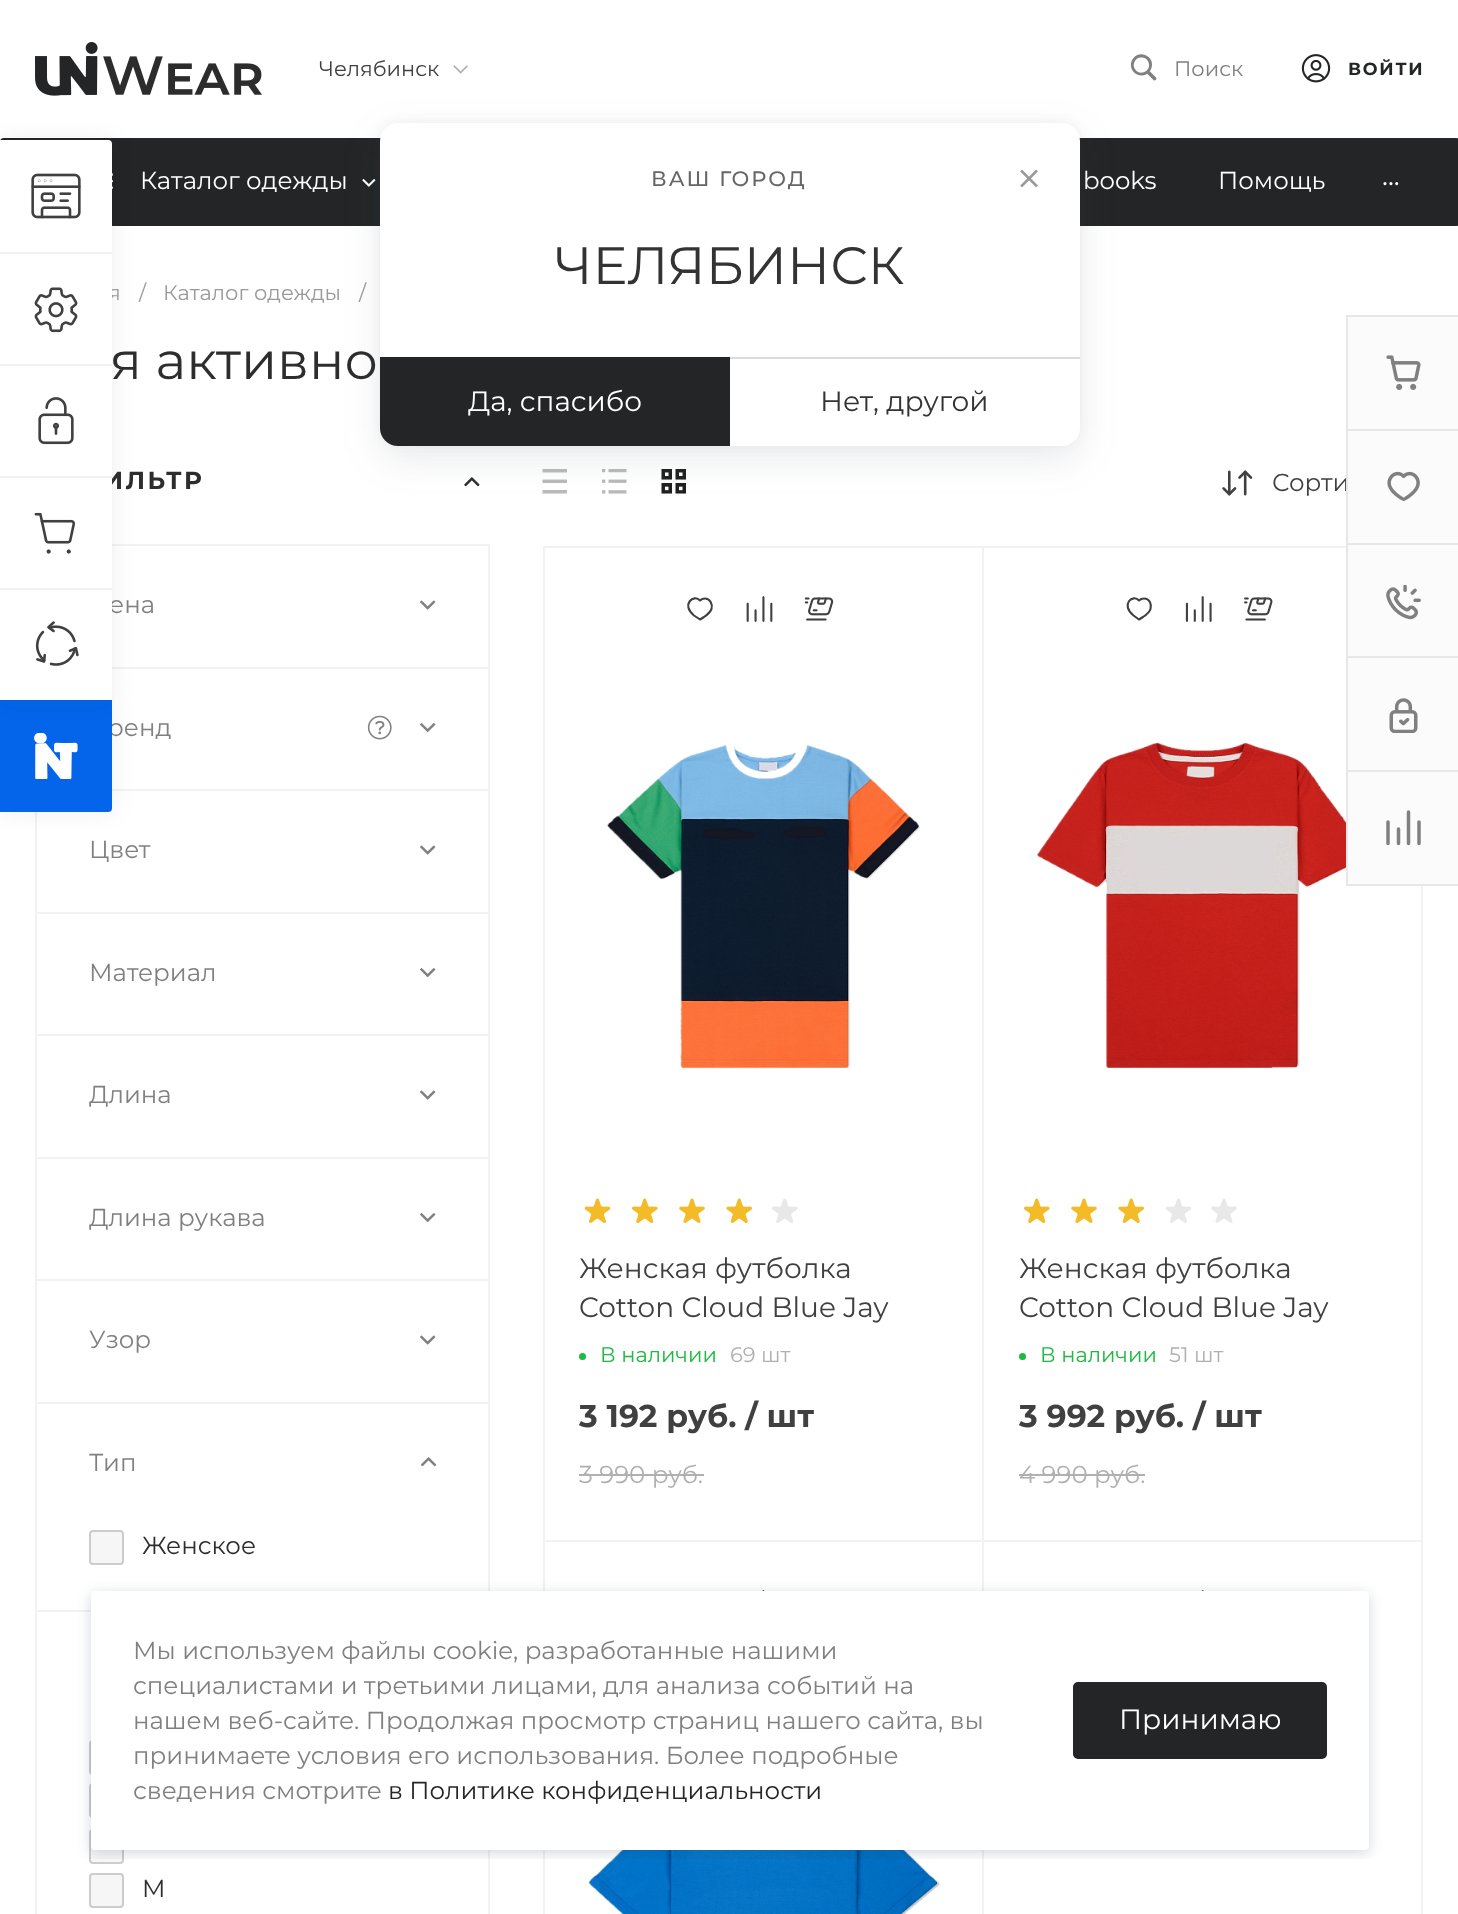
async function draw(canvas) {
  canvas.width = 1458;
  canvas.height = 1914;
  const ctx = canvas.getContext('2d');
  ctx.miterLimit = 4;
  ctx.fontKerning = 'normal';
  function label(s, x, y, font, color) {
    ctx.font = font;
    ctx.fillStyle = color;
    ctx.fillText(s, x, y);
  }
  function rect(x, y, w, h, color) {
    ctx.fillStyle = color;
    ctx.fillRect(x, y, w, h);
  }
  function roundedRect(x, y, w, h, r, color) {
    ctx.fillStyle = color;
    ctx.beginPath();
    ctx.roundRect(x, y, w, h, r);
    ctx.fill();
  }
  async function image(src, x, y, w, h) {
    const img = new Image();
    img.src = src;
    await img.decode();
    ctx.drawImage(img, x, y, w, h);
  }
  let path;

  rect(0, 0, 1458, 1914, '#fff');
  roundedRect(0, 138, 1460, 88, 4, '#232526');
  await image('assets/img10.png', 112, 173, 1, 16);
  rect(112, 544, 378, 2, '#f2f2f2');
  rect(112, 667, 376, 2, '#f2f2f2');
  label('ренд', 107, 736, '24.5px Montserrat', '#808080');
  rect(35, 812, 2, 1102, '#f2f2f2');
  rect(112, 789, 376, 2, '#f2f2f2');
  ctx.fillStyle = '#1b1e2514';
  ctx.filter = 'blur(10.5px)';
  ctx.beginPath();
  ctx.roundRect(0, 700, 112, 112, 4);
  ctx.fill();
  ctx.filter = 'none';
  ctx.fillStyle = '#0465eb';
  ctx.beginPath();
  ctx.roundRect(0, 700, 112, 112, [0, 0, 4, 0]);
  ctx.fill();
  ctx.fillStyle = '#1b1e2514';
  ctx.filter = 'blur(10.5px)';
  ctx.beginPath();
  ctx.roundRect(0, 140, 112, 560, 4);
  ctx.fill();
  ctx.filter = 'none';
  ctx.fillStyle = '#fff';
  ctx.beginPath();
  ctx.roundRect(0, 140, 112, 112, [0, 4, 0, 0]);
  ctx.fill();
  await image('assets/img1.png', 31, 173, 50, 46);
  label('я', 108, 300, '21px Montserrat', '#9a9a9a');
  rect(0, 254, 112, 110, '#fff');
  rect(0, 252, 112, 2, '#f2f2f2');
  await image('assets/img2.png', 34, 287, 44, 46);
  ctx.letterSpacing = '2.5px';
  label('ИЛЬТР', 103, 489, 'bold 24.5px Montserrat', '#2d2d2d');
  rect(0, 366, 112, 110, '#fff');
  rect(0, 364, 112, 2, '#f2f2f2');
  await image('assets/img3.png', 38, 397, 36, 48);
  rect(0, 478, 112, 110, '#fff');
  rect(0, 476, 112, 2, '#f2f2f2');
  await image('assets/img4.png', 34, 512, 41, 42);
  ctx.letterSpacing = '0px';
  label('ена', 109, 613, '24.5px Montserrat', '#808080');
  rect(0, 590, 112, 110, '#fff');
  rect(0, 588, 112, 2, '#f2f2f2');
  await image('assets/img5.png', 35, 621, 44, 45);
  await image('assets/img6.png', 35, 42, 227, 54);
  label('Челябинск', 319, 76, '21px Montserrat', '#404040');
  await image('assets/img7.png', 453, 65, 15, 9);
  await image('assets/img8.png', 1131, 54, 26, 27);
  label('Поиск', 1174, 76, '21px Montserrat', '#808080');
  await image('assets/img9.png', 1301, 54, 30, 29);
  ctx.letterSpacing = '1.75px';
  label('ВОЙТИ', 1348, 75, 'bold 17.5px Montserrat', '#232526');
  ctx.letterSpacing = '0px';
  label('Каталог одежды', 140, 189, '24.5px Montserrat', '#fff');
  await image('assets/img11.png', 362, 179, 14, 8);
  label('books', 1083, 189, '24.5px Montserrat', '#fff');
  label('Помощь', 1218, 189, '24.5px Montserrat', '#fff');
  label('...', 1382, 185, '28px Montserrat', '#fff');
  label('/', 139, 300, '21px Montserrat', '#9a9a9a');
  label('Каталог одежды', 163, 300, '21px Montserrat', '#9a9a9a');
  label('/', 359, 300, '21px Montserrat', '#9a9a9a');
  label('я активно', 110, 379, '52.5px Montserrat', '#2d2d2d');
  ctx.strokeStyle = '#f2f2f2';
  ctx.lineWidth = 2;
  ctx.strokeRect(544, 547, 439, 996);
  ctx.strokeRect(983, 547, 439, 996);
  rect(1348, 317, 110, 567, '#fbfbfb');
  rect(1346, 315, 112, 2, '#e7e7e7');
  rect(1346, 884, 112, 2, '#e7e7e7');
  label('Сорти', 1272, 491, '24.5px Montserrat', '#404040');
  rect(1346, 315, 2, 571, '#e7e7e7');
  rect(1348, 429, 110, 2, '#e7e7e7');
  await image('assets/img12.png', 1386, 355, 35, 35);
  rect(1348, 543, 110, 2, '#e7e7e7');
  await image('assets/img13.png', 1387, 471, 33, 31);
  rect(1348, 656, 110, 2, '#e7e7e7');
  await image('assets/img14.png', 1386, 585, 35, 35);
  rect(1348, 770, 110, 2, '#e7e7e7');
  await image('assets/img15.png', 1389, 698, 29, 35);
  path = new Path2D('M1398.5 829V843.5M1419 822V843.5M1408.5 812V843.5M1388 822V843.5');
  ctx.strokeStyle = '#808080';
  ctx.lineWidth = 3.5;
  ctx.lineCap = 'round';
  ctx.lineJoin = 'round';
  ctx.stroke(path);
  await image('assets/img16.png', 464, 477, 16, 10);
  rect(488, 544, 2, 1370, '#f2f2f2');
  await image('assets/img17.png', 420, 600, 16, 10);
  await image('assets/img18.png', 367, 715, 25, 25);
  await image('assets/img19.png', 420, 723, 16, 10);
  label('Цвет', 89, 858, '24.5px Montserrat', '#808080');
  await image('assets/img17.png', 420, 845, 16, 10);
  rect(37, 912, 451, 2, '#f2f2f2');
  label('Материал', 89, 981, '24.5px Montserrat', '#808080');
  await image('assets/img19.png', 420, 968, 16, 10);
  rect(37, 1034, 451, 2, '#f2f2f2');
  label('Длина', 89, 1103, '24.5px Montserrat', '#808080');
  await image('assets/img17.png', 420, 1090, 16, 10);
  rect(37, 1157, 451, 2, '#f2f2f2');
  label('Длина рукава', 89, 1226, '24.5px Montserrat', '#808080');
  await image('assets/img19.png', 420, 1213, 16, 10);
  rect(37, 1279, 451, 2, '#f2f2f2');
  label('Узор', 89, 1348, '24.5px Montserrat', '#808080');
  await image('assets/img17.png', 420, 1335, 16, 10);
  rect(37, 1402, 451, 2, '#f2f2f2');
  label('Тип', 89, 1471, '24.5px Montserrat', '#808080');
  await image('assets/img20.png', 420, 1457, 17, 10);
  ctx.fillStyle = '#f6f6f6';
  ctx.beginPath();
  ctx.roundRect(90, 1531, 33, 33, 3);
  ctx.fill();
  ctx.strokeStyle = '#ccc';
  ctx.lineWidth = 2;
  ctx.lineJoin = 'miter';
  ctx.stroke();
  label('Женское', 142, 1554, '24.5px Montserrat', '#2d2d2d');
  rect(37, 1610, 54, 2, '#f2f2f2');
  ctx.beginPath();
  ctx.roundRect(90, 1741, 33, 33, 3);
  ctx.stroke();
  ctx.beginPath();
  ctx.roundRect(90, 1784, 33, 33, 3);
  ctx.stroke();
  ctx.fillStyle = '#f6f6f6';
  ctx.beginPath();
  ctx.roundRect(90, 1830, 33, 33, 3);
  ctx.fill();
  ctx.stroke();
  ctx.beginPath();
  ctx.roundRect(90, 1874, 33, 33, 3);
  ctx.fill();
  ctx.stroke();
  label('M', 142, 1897, '24.5px Montserrat', '#2d2d2d');
  await image('assets/img21.png', 542, 469, 25, 25);
  await image('assets/img22.png', 602, 469, 25, 25);
  await image('assets/img23.png', 661, 469, 25, 25);
  await image('assets/img24.png', 1222, 470, 31, 26);
  path = new Path2D('M705 598.5C710 598.5 713 604.5 711.5 609C710 612.5 707 615 704 617L700 619.5L694 615.5C680.5 604.5 694 593.5 700 600.5C701 599.5 702.5 598.5 705 598.5Z');
  ctx.strokeStyle = '#404040';
  ctx.lineWidth = 2.1;
  ctx.lineJoin = 'round';
  ctx.stroke(path);
  await image('assets/img25.png', 746, 596, 27, 26);
  await image('assets/img26.png', 804, 597, 30, 24);
  await image('assets/img27.png', 607, 745, 313, 324);
  await image('assets/img28.png', 584, 1198, 27, 25);
  await image('assets/img29.png', 631, 1198, 27, 25);
  await image('assets/img30.png', 679, 1198, 26, 25);
  await image('assets/img31.png', 726, 1198, 26, 25);
  await image('assets/img32.png', 772, 1198, 26, 25);
  label('Женская футболка', 579, 1278, '28px Montserrat', '#404040');
  label('Cotton Cloud Blue Jay', 579, 1317, '28px Montserrat', '#404040');
  ctx.fillStyle = '#1db940';
  ctx.beginPath();
  ctx.arc(582.5, 1356.5, 3.5, 0, 2 * Math.PI);
  ctx.fill();
  label('В наличии', 600, 1362, '21px Montserrat', '#1db940');
  label('69 шт', 730, 1362, '21px Montserrat', '#b0b0b0');
  label('3 192 руб. / шт', 579, 1427, 'bold 31.5px Montserrat', '#404040');
  label('3 990 руб.', 579, 1483, '24.5px Montserrat', '#b0b0b0');
  rect(579, 1474, 125, 2, '#b0b0b0');
  path = new Path2D('M1144 598.5C1149.5 598.5 1152 604.5 1150.5 609C1149.5 612.5 1146 615 1143 617L1139 619.5L1133.5 615.5C1120 604.5 1133 593.5 1139 600.5C1140 599.5 1141.5 598.5 1144 598.5Z');
  ctx.stroke(path);
  await image('assets/img33.png', 1185, 596, 27, 26);
  await image('assets/img34.png', 1244, 597, 29, 24);
  await image('assets/img35.png', 1037, 742, 309, 327);
  await image('assets/img29.png', 1023, 1198, 27, 25);
  await image('assets/img30.png', 1071, 1198, 26, 25);
  await image('assets/img31.png', 1118, 1198, 26, 25);
  await image('assets/img36.png', 1165, 1198, 27, 25);
  await image('assets/img37.png', 1211, 1198, 26, 25);
  label('Женская футболка', 1019, 1278, '28px Montserrat', '#404040');
  label('Cotton Cloud Blue Jay', 1019, 1317, '28px Montserrat', '#404040');
  ctx.fillStyle = '#1db940';
  ctx.beginPath();
  ctx.arc(1022.5, 1356.5, 3.5, 0, 2 * Math.PI);
  ctx.fill();
  label('В наличии', 1040, 1362, '21px Montserrat', '#1db940');
  label('51 шт', 1169, 1362, '21px Montserrat', '#b0b0b0');
  label('3 992 руб. / шт', 1019, 1427, 'bold 31.5px Montserrat', '#404040');
  label('4 990 руб.', 1019, 1483, '24.5px Montserrat', '#b0b0b0');
  rect(1019, 1474, 126, 2, '#b0b0b0');
  rect(545, 1542, 437, 2, '#fff');
  ctx.strokeStyle = '#f2f2f2';
  ctx.lineWidth = 2;
  ctx.lineJoin = 'miter';
  ctx.strokeRect(544, 1541, 439, 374);
  await image('assets/img38.png', 762, 1590, 3, 1);
  await image('assets/img39.png', 589, 1850, 351, 64);
  rect(984, 1542, 437, 2, '#fff');
  ctx.strokeRect(983, 1541, 439, 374);
  await image('assets/img40.png', 1201, 1590, 3, 1);
  ctx.fillStyle = '#535c690f';
  ctx.filter = 'blur(5px)';
  ctx.beginPath();
  ctx.roundRect(380, 121, 700, 324, 18);
  ctx.fill();
  ctx.filter = 'none';
  ctx.fillStyle = '#535c691f';
  ctx.filter = 'blur(18.5px)';
  ctx.beginPath();
  ctx.roundRect(380, 135, 700, 324, 18);
  ctx.fill();
  ctx.filter = 'none';
  roundedRect(380, 123, 700, 323, 18, '#fff');
  ctx.letterSpacing = '2px';
  label('ВАШ ГОРОД', 651, 186, '500 21px Montserrat', '#666');
  ctx.letterSpacing = '0px';
  label('ЧЕЛЯБИНСК', 555, 284, '52.5px Montserrat', '#333');
  await image('assets/img41.png', 1020, 169, 18, 19);
  rect(730, 357, 350, 2, '#dcdcdc');
  ctx.fillStyle = '#232526';
  ctx.beginPath();
  ctx.roundRect(380, 357, 350, 89, [0, 0, 0, 18]);
  ctx.fill();
  label('Да, спасибо', 468, 411, '28px Montserrat', '#fff');
  label('Нет, другой', 820, 411, '28px Montserrat', '#333');
  await image('assets/img42.png', 34, 733, 44, 46);
  ctx.save();
  ctx.beginPath();
  ctx.rect(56, 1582, 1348, 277);
  ctx.clip();
  ctx.fillStyle = '#223c5033';
  ctx.filter = 'blur(7px)';
  ctx.beginPath();
  ctx.roundRect(91, 1594, 1278, 259, 4);
  ctx.fill();
  ctx.filter = 'none';
  ctx.restore();
  roundedRect(91, 1591, 1278, 259, 4, '#fff');
  label('Мы используем файлы cookie, разработанные нашими', 133, 1659, '24.5px Montserrat', '#808080');
  label('специалистами и третьими лицами, для анализа событий на', 133, 1694, '24.5px Montserrat', '#808080');
  label('нашем веб-сайте. Продолжая просмотр страниц нашего сайта, вы', 133, 1729, '24.5px Montserrat', '#808080');
  label('принимаете условия его использования. Более подробные', 133, 1764, '24.5px Montserrat', '#808080');
  label('сведения смотрите', 133, 1799, '24.5px Montserrat', '#808080');
  label('в Политике конфиденциальности', 388, 1799, '24.5px Montserrat', '#232526');
  ctx.beginPath();
  ctx.roundRect(1075, 1684, 250, 73, 3);
  ctx.fill();
  ctx.strokeStyle = '#232526';
  ctx.lineWidth = 4;
  ctx.stroke();
  label('Принимаю', 1119, 1729, '28px Montserrat', '#fff');
}

draw(document.querySelector('canvas'));
